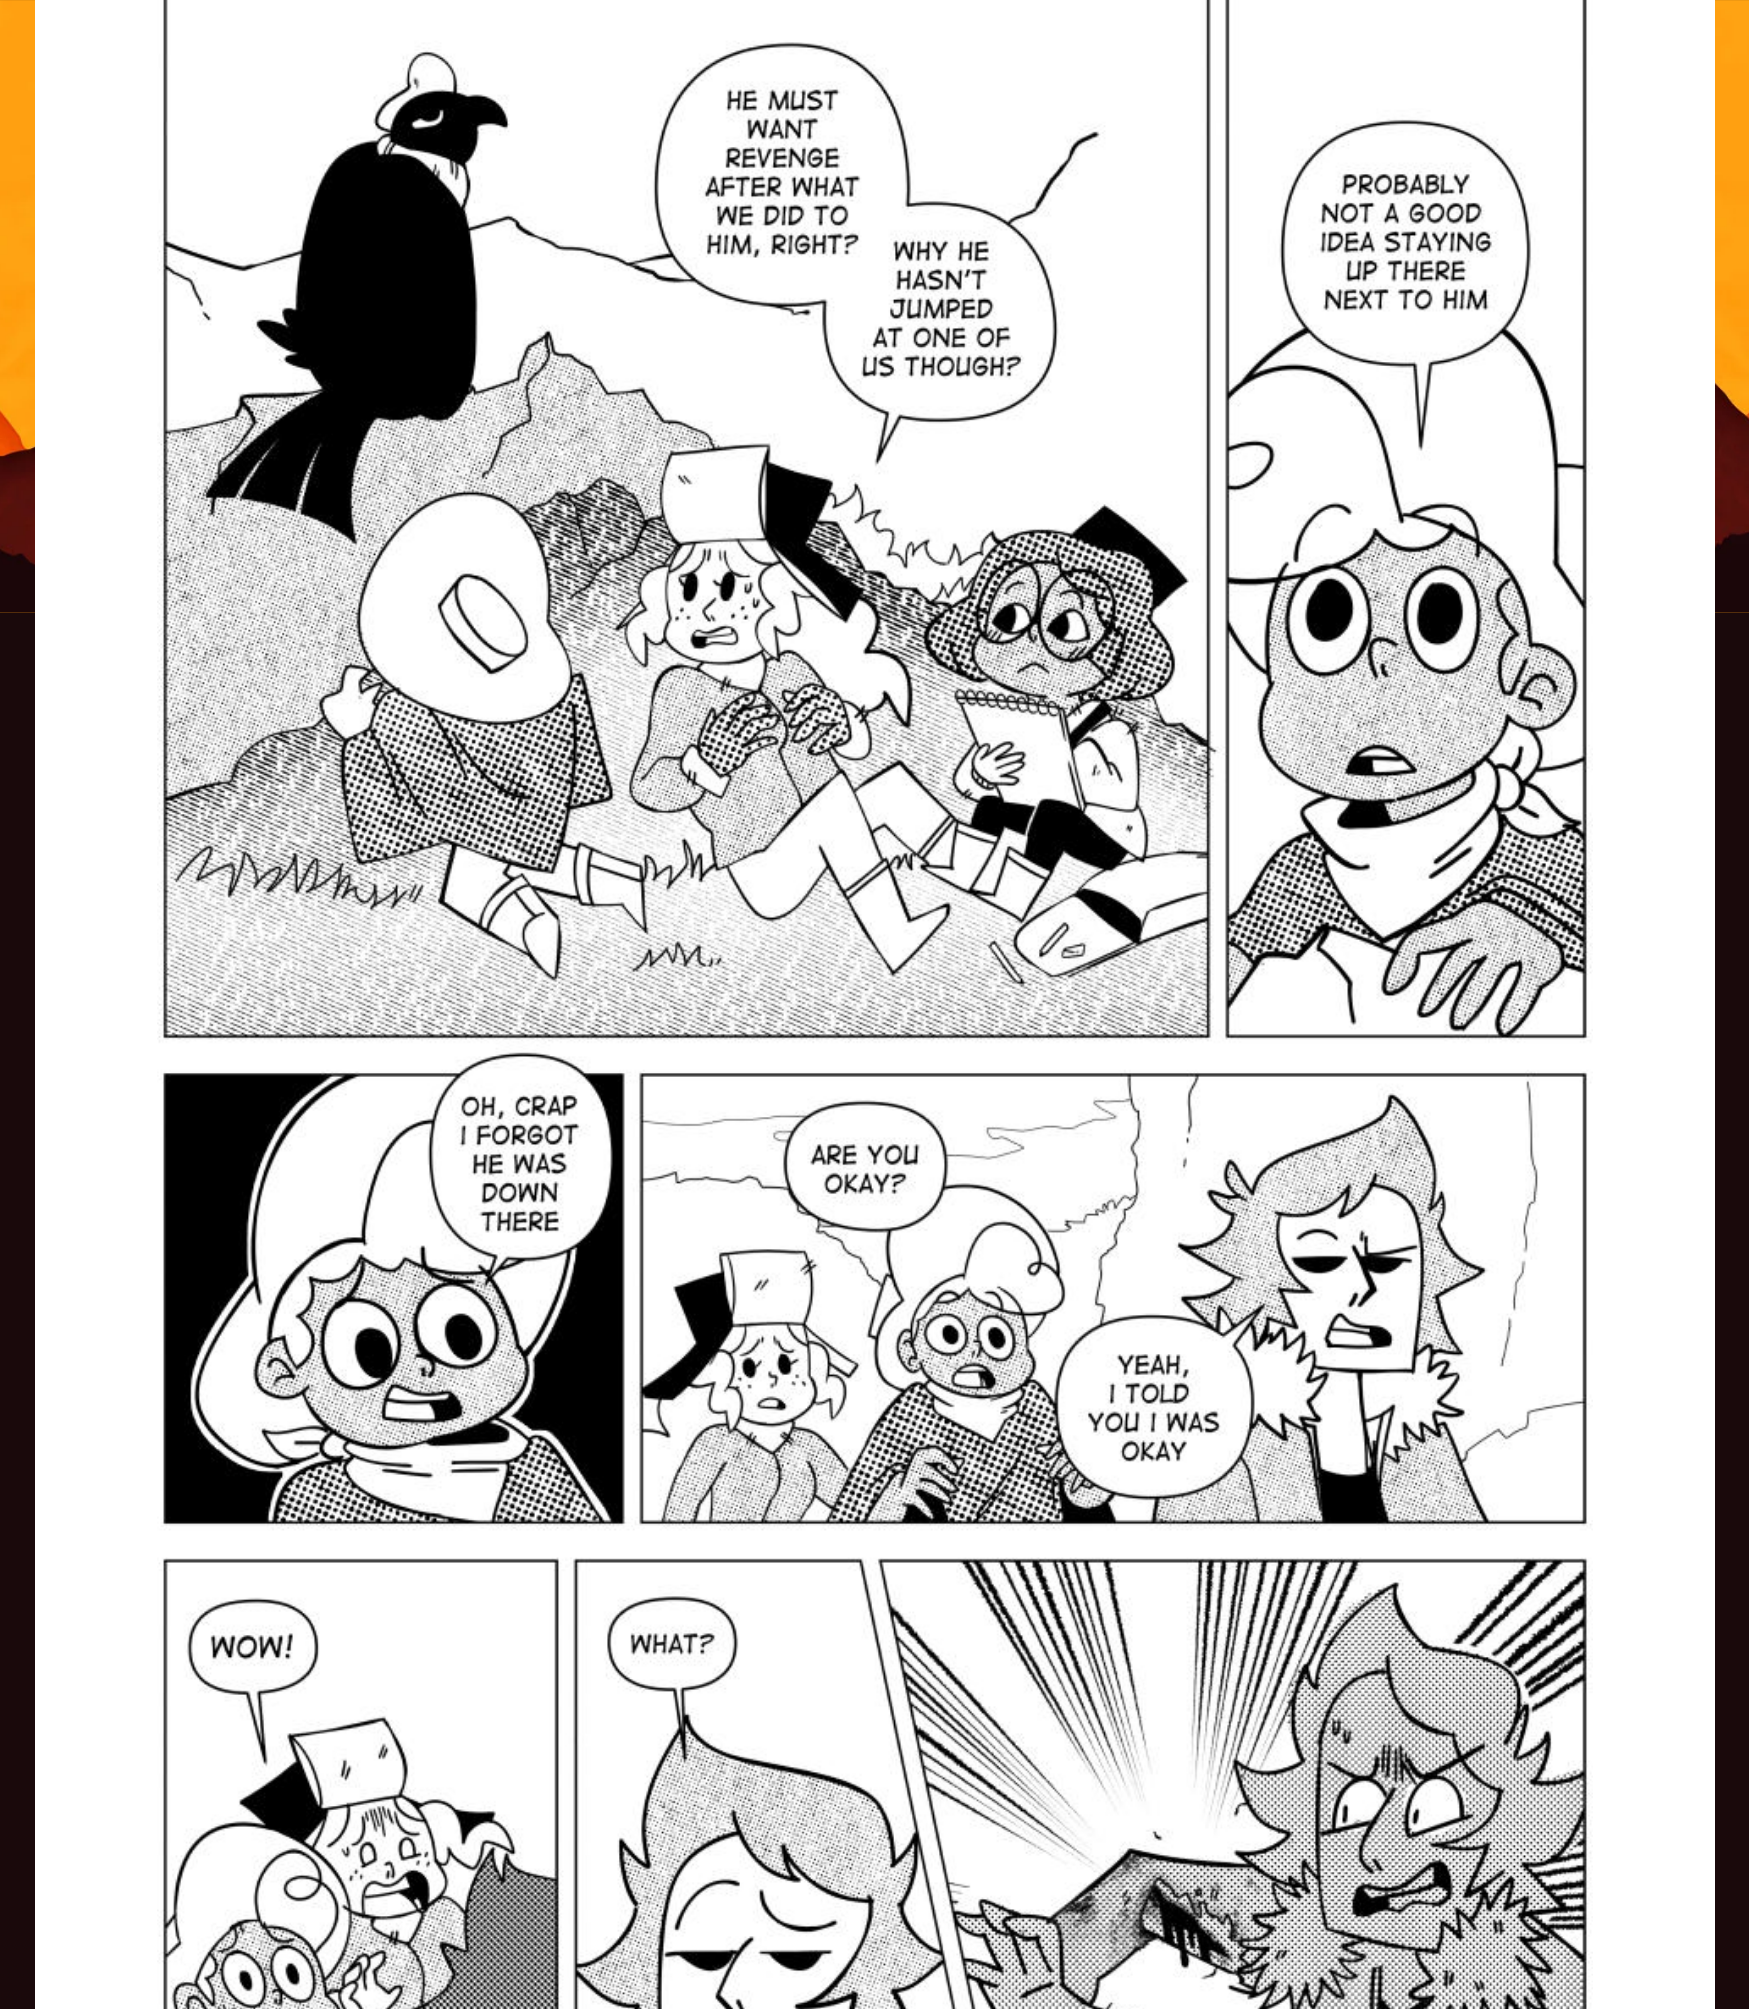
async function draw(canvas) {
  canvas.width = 1749;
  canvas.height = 2009;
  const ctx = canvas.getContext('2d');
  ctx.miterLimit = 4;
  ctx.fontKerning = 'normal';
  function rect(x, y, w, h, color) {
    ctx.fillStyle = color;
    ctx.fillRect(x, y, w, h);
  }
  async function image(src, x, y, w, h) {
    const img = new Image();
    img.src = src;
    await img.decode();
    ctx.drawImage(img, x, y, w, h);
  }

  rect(0, 0, 1749, 2009, '#1a090b');
  await image('assets/img1.png', 0, 0, 1749, 613);
  rect(35, 0, 1680, 2009, '#fff');
  await image('assets/img2.png', 157, 0, 1436, 2009);
}

draw(document.querySelector('canvas'));
